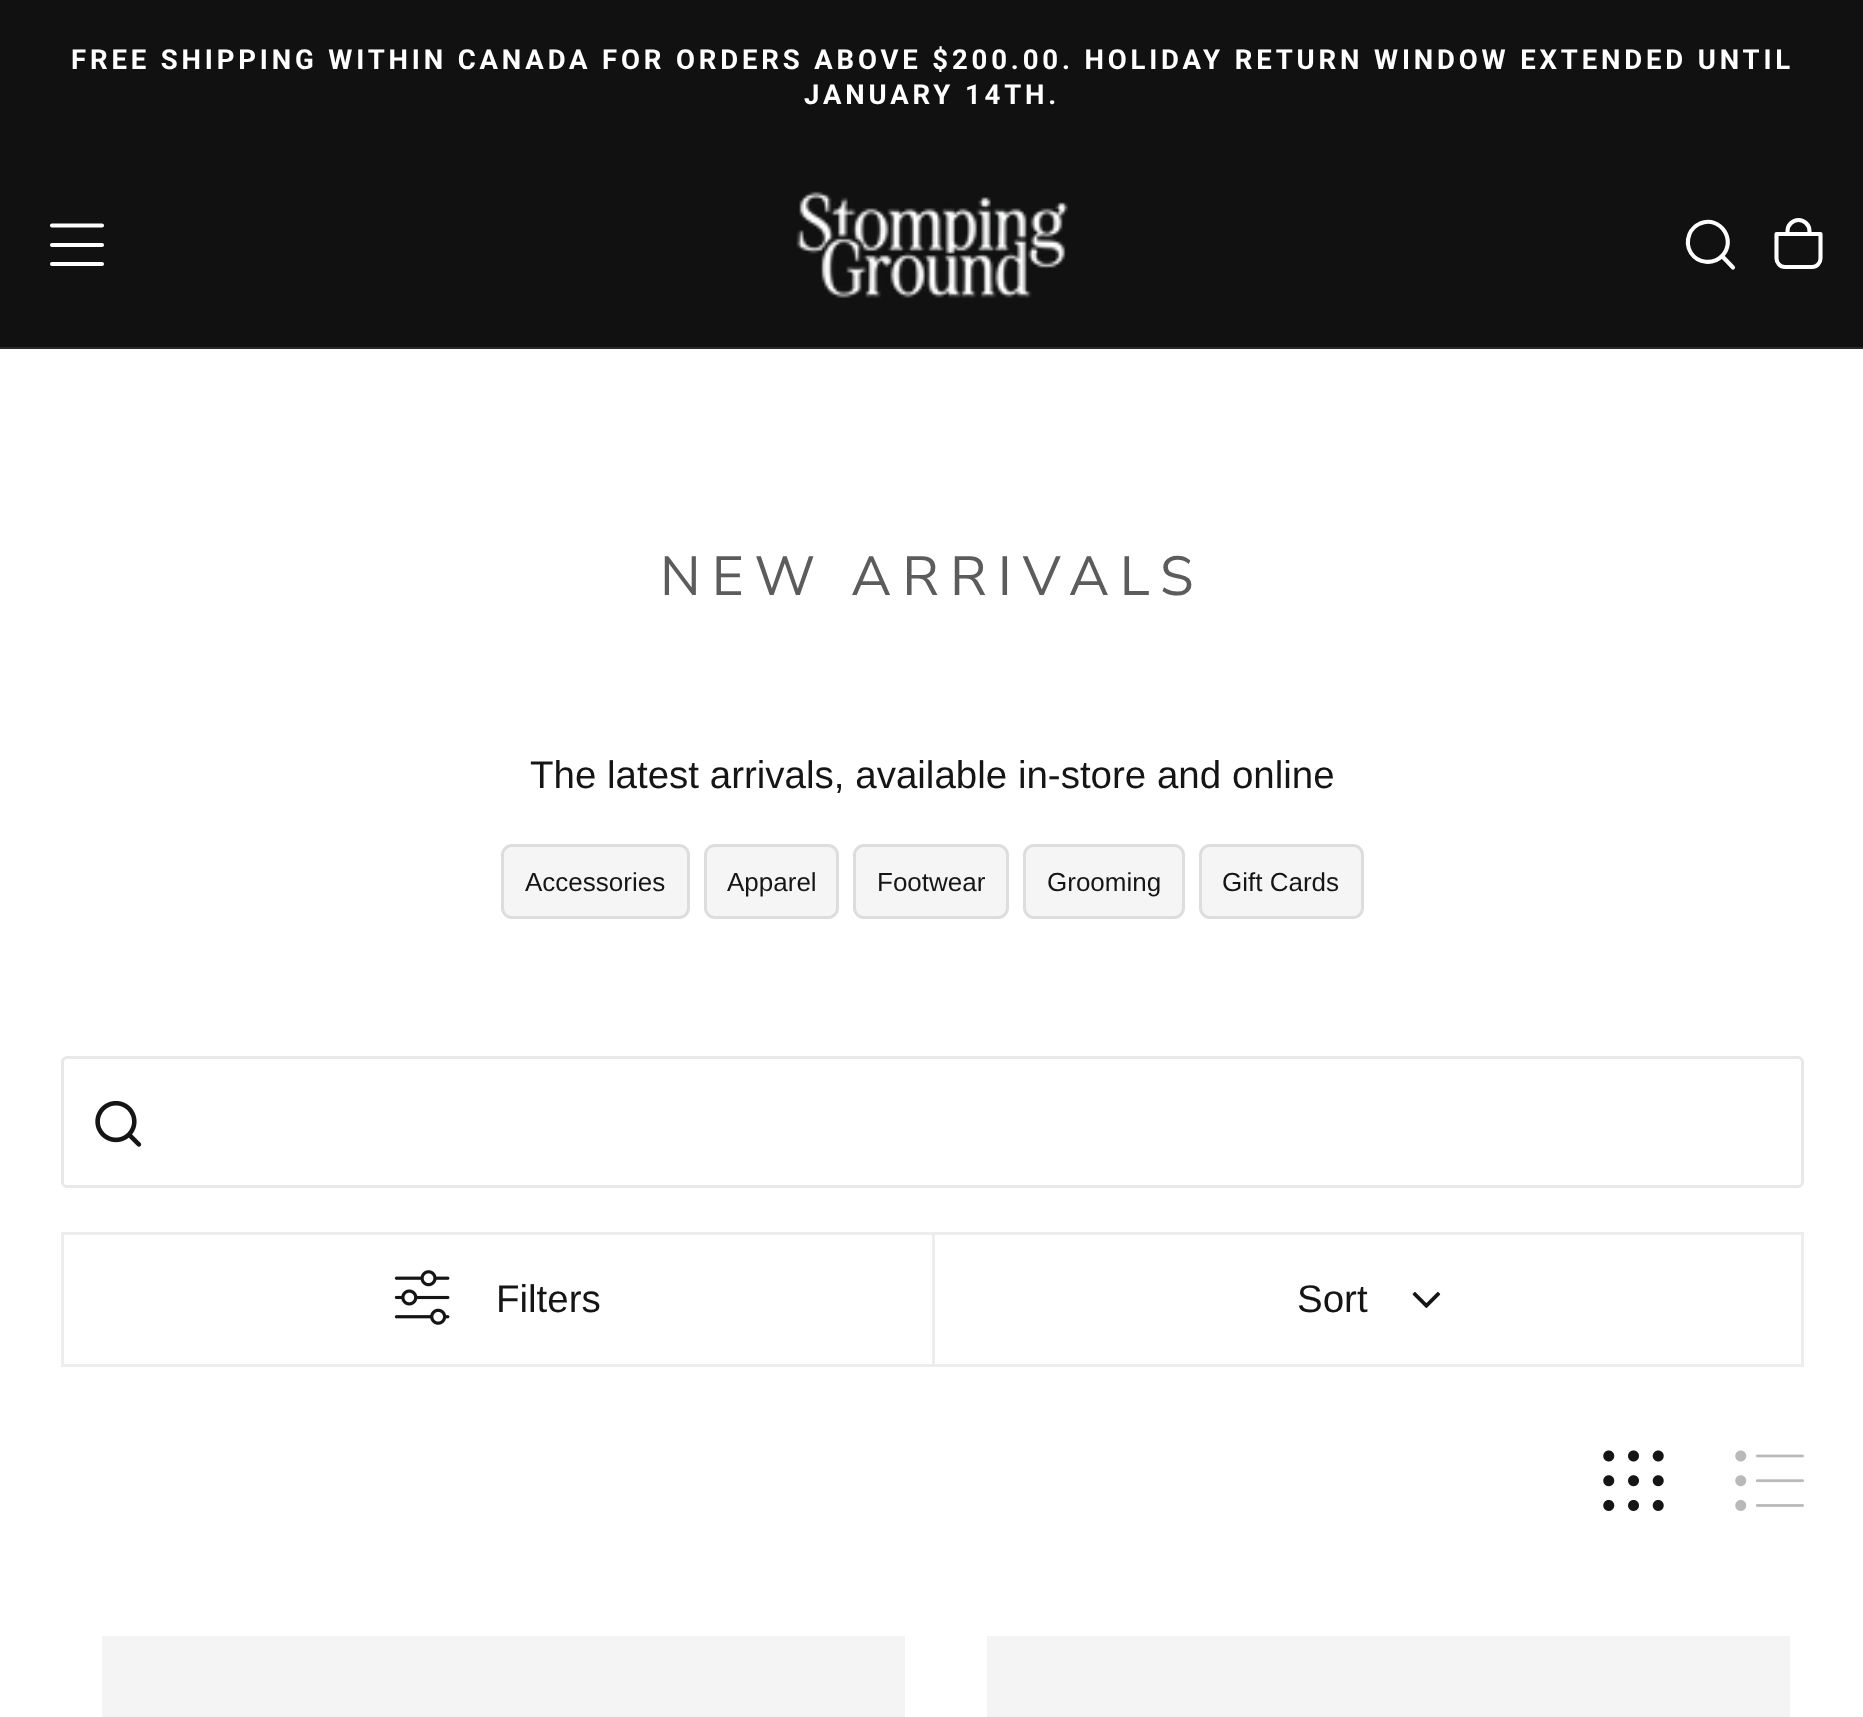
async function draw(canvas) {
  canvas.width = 1863;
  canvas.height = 1717;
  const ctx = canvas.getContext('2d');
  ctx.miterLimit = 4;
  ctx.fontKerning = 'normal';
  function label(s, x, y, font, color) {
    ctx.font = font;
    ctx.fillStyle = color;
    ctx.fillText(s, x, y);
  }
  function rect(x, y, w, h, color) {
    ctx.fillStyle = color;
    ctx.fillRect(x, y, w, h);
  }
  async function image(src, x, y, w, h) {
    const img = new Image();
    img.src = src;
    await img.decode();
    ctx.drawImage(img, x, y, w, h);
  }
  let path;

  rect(0, 0, 1863, 1717, '#fff');
  rect(0, 0, 1863, 347, '#111');
  ctx.letterSpacing = '3.85px';
  label('FREE SHIPPING WITHIN CANADA FOR ORDERS ABOVE $200.00. HOLIDAY RETURN WINDOW EXTENDED UNTIL', 71, 69, 'bold 27.5px Roboto', '#fff');
  label('JANUARY 14TH.', 804, 104, 'bold 27.5px Roboto', '#fff');
  rect(0, 347, 1863, 2, '#292929');
  path = new Path2D('M52 245H102M52 225.5H102M52 264H102');
  ctx.strokeStyle = '#fff';
  ctx.lineWidth = 4.1;
  ctx.lineCap = 'round';
  ctx.stroke(path);
  await image('assets/img1.png', 796, 191, 272, 107);
  path = new Path2D('M1733 267.5L1722 256M1722 256C1737 241 1720.5 215 1700 223.5C1695.5 225.5 1691.5 229.5 1689.5 234C1687 240.5 1687.5 247.5 1691 253C1698 263.5 1713 265 1722 256Z');
  ctx.lineJoin = 'round';
  ctx.stroke(path);
  path = new Path2D('M1776.5 234H1820.5V258.5C1820.5 263 1817 267 1812 267H1785C1780 267 1776.5 263 1776.5 258.5ZM1787.5 234V231C1787.5 225 1792.5 220 1798.5 220C1804.5 220 1809.5 225 1809.5 231V234');
  ctx.lineCap = 'butt';
  ctx.stroke(path);
  ctx.letterSpacing = '11px';
  label('NEW ARRIVALS', 660, 595, '55px Nunito Sans', '#5c5c5c');
  ctx.letterSpacing = '0px';
  label('The latest arrivals, available in-store and online', 530, 788, '38.5px Liberation Sans', '#151515');
  ctx.fillStyle = '#f5f5f5';
  ctx.beginPath();
  ctx.roundRect(502.5, 845.5, 186, 72, 9.5);
  ctx.fill();
  ctx.strokeStyle = '#ddd';
  ctx.lineWidth = 3;
  ctx.lineJoin = 'miter';
  ctx.stroke();
  label('Accessories', 525, 891, '26px Liberation Sans', '#151515');
  ctx.fillStyle = '#f5f5f5';
  ctx.beginPath();
  ctx.roundRect(705.5, 845.5, 132, 72, 9.5);
  ctx.fill();
  ctx.stroke();
  label('Apparel', 727, 891, '26px Liberation Sans', '#151515');
  ctx.fillStyle = '#f5f5f5';
  ctx.beginPath();
  ctx.roundRect(854.5, 845.5, 153, 72, 9.5);
  ctx.fill();
  ctx.stroke();
  label('Footwear', 877, 891, '26px Liberation Sans', '#151515');
  ctx.fillStyle = '#f5f5f5';
  ctx.beginPath();
  ctx.roundRect(1024.5, 845.5, 159, 72, 9.5);
  ctx.fill();
  ctx.stroke();
  label('Grooming', 1047, 891, '26px Liberation Sans', '#151515');
  ctx.fillStyle = '#f5f5f5';
  ctx.beginPath();
  ctx.roundRect(1200.5, 845.5, 162, 72, 9.5);
  ctx.fill();
  ctx.stroke();
  label('Gift Cards', 1222, 891, '26px Liberation Sans', '#151515');
  ctx.beginPath();
  ctx.roundRect(62.5, 1057.5, 1740, 129, 4.5);
  ctx.strokeStyle = '#e8e8e8';
  ctx.stroke();
  await image('assets/img2.png', 95, 1100, 47, 47);
  rect(61, 1232, 871, 3, '#ededed');
  rect(61, 1364, 871, 3, '#ededed');
  rect(61, 1232, 3, 135, '#ededed');
  await image('assets/img3.png', 394, 1270, 56, 55);
  label('Filters', 496, 1312, '38.5px Liberation Sans', '#151515');
  ctx.strokeStyle = '#ededed';
  ctx.strokeRect(933.5, 1233.5, 869, 132);
  label('Sort', 1297, 1312, '38.5px Liberation Sans', '#151515');
  await image('assets/img4.png', 1412, 1292, 29, 16);
  await image('assets/img5.png', 1603, 1450, 61, 61);
  await image('assets/img6.png', 1735, 1450, 69, 61);
  rect(102, 1636, 803, 81, '#f4f4f4');
  rect(987, 1636, 803, 81, '#f4f4f4');
}

draw(document.querySelector('canvas'));
